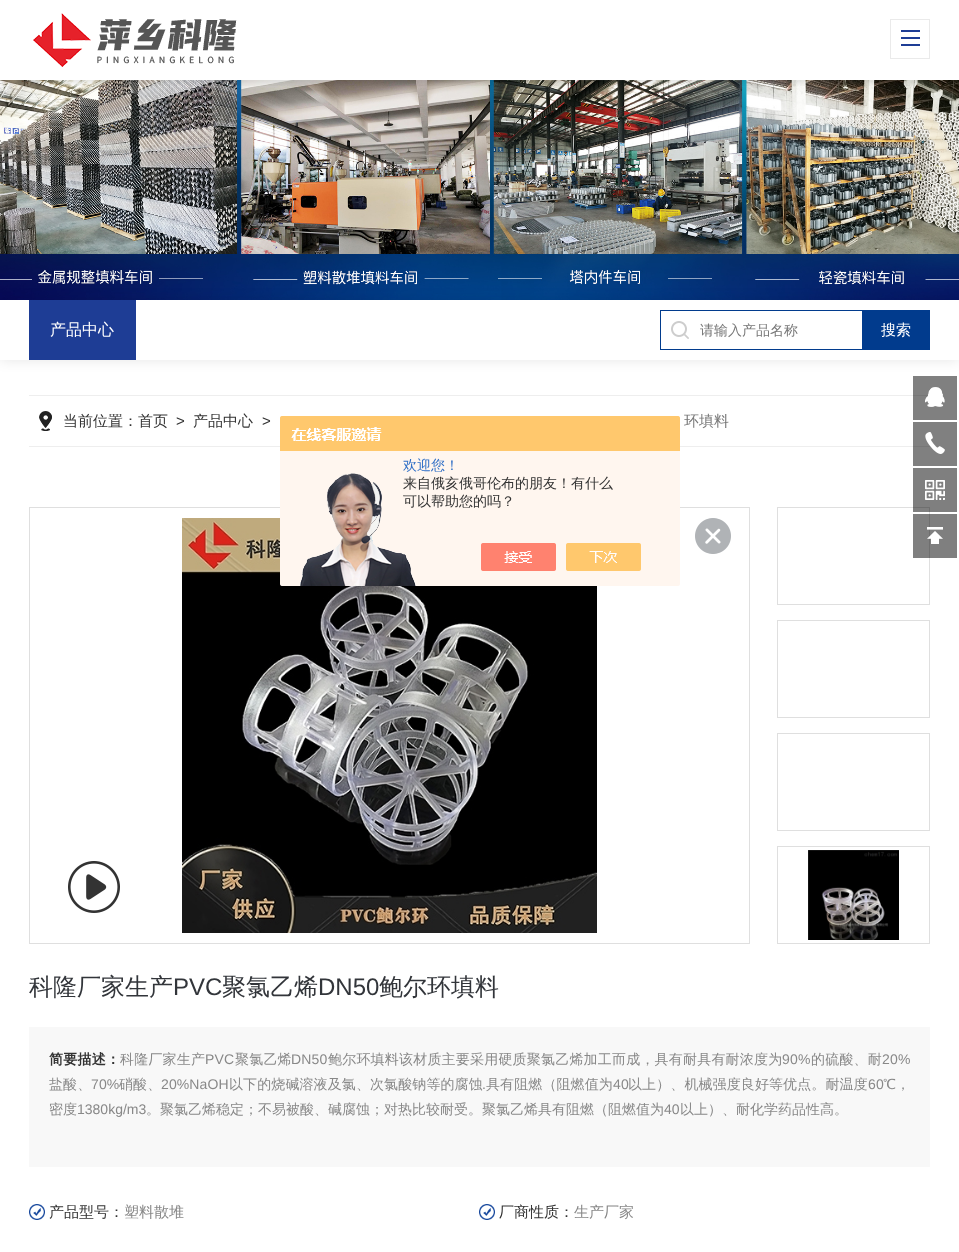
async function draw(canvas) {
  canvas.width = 959;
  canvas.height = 1252;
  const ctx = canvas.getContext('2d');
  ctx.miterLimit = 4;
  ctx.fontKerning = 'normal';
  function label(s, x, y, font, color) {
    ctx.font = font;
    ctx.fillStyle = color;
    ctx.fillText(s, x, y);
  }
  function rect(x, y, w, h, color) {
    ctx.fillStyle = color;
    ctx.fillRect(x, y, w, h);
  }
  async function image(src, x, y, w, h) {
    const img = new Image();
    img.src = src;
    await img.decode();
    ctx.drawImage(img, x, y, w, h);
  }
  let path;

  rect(0, 0, 959, 1252, '#fff');
  rect(913, 422, 44, 44, '#808080');
  rect(913, 376, 44, 44, '#808080');
  await image('assets/img2.png', 0, 80, 959, 220);
  ctx.save();
  ctx.beginPath();
  ctx.rect(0, 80, 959, 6);
  ctx.clip();
  ctx.fillStyle = '#0000001a';
  ctx.filter = 'blur(3px)';
  ctx.beginPath();
  ctx.rect(0, 3, 959, 80);
  ctx.fill();
  ctx.filter = 'none';
  ctx.restore();
  await image('assets/img1.png', 33, 13, 204, 54);
  ctx.strokeStyle = '#eaeaea';
  ctx.strokeRect(890.5, 19.5, 39, 39);
  rect(901, 30, 19, 2, '#1e3d95');
  rect(901, 37, 19, 2, '#1e3d95');
  rect(901, 44, 19, 2, '#1e3d95');
  ctx.save();
  path = new Path2D('M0 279H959V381H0ZM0 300H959V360H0Z');
  ctx.clip(path, 'evenodd');
  ctx.fillStyle = '#0000001a';
  ctx.filter = 'blur(6.5px)';
  ctx.beginPath();
  ctx.rect(0, 300, 959, 60);
  ctx.fill();
  ctx.filter = 'none';
  ctx.restore();
  rect(29, 300, 107, 60, '#1e3d95');
  label('产品中心', 50, 335, '500 16px WenQuanYi Zen Hei', '#fff');
  await image('assets/img3.png', 671, 321, 18, 18);
  rect(660, 310, 202, 1, '#013b8d');
  rect(660, 349, 202, 1, '#013b8d');
  rect(660, 310, 1, 40, '#013b8d');
  label('请输入产品名称', 700, 335, '500 14px WenQuanYi Zen Hei', '#777');
  rect(862, 310, 68, 40, '#013b8d');
  label('搜索', 881, 335, '500 15px WenQuanYi Zen Hei', '#fff');
  rect(29, 395, 884, 1, '#eee');
  rect(913, 395, 17, 1, '#777');
  rect(29, 446, 884, 1, '#eee');
  rect(913, 446, 17, 1, '#777');
  await image('assets/img4.png', 39, 411, 13, 20);
  label('当前位置：首页', 63, 426, '500 15px WenQuanYi Zen Hei', '#333');
  label('>', 176, 426, '15px Liberation Sans', '#333');
  label('产品中心', 193, 426, '500 15px WenQuanYi Zen Hei', '#333');
  label('>', 262, 426, '15px Liberation Sans', '#333');
  label('环填料', 684, 426, '500 15px WenQuanYi Zen Hei', '#777');
  await image('assets/img5.png', 925, 387, 20, 20);
  await image('assets/img6.png', 925, 432, 20, 22);
  ctx.strokeStyle = '#dfdfdf';
  ctx.strokeRect(777.5, 507.5, 152, 97);
  rect(913, 468, 44, 44, '#00000080');
  await image('assets/img7.png', 925, 480, 20, 20);
  rect(913, 514, 44, 44, '#00000080');
  await image('assets/img8.png', 927, 527, 16, 17);
  ctx.strokeRect(29.5, 507.5, 720, 436);
  await image('assets/img10.png', 182, 518, 415, 415);
  await image('assets/img9.png', 280, 416, 400, 170);
  label('欢迎您！', 403, 470, '500 14px WenQuanYi Zen Hei', '#2e6ec6');
  label('来自俄亥俄哥伦布的朋友！有什么', 403, 488, '500 14px WenQuanYi Zen Hei', '#333');
  label('可以帮助您的吗？', 403, 506, '500 14px WenQuanYi Zen Hei', '#333');
  await image('assets/img11.png', 695, 518, 36, 36);
  await image('assets/img12.png', 68, 861, 52, 52);
  ctx.strokeRect(777.5, 620.5, 152, 97);
  ctx.strokeRect(777.5, 733.5, 152, 97);
  ctx.strokeRect(777.5, 846.5, 152, 97);
  await image('assets/img13.png', 808, 850, 91, 90);
  label('科隆厂家生产', 29, 995, '500 24px WenQuanYi Zen Hei', '#32353a');
  label('PVC', 173, 995, '24px Liberation Sans', '#32353a');
  label('聚氯乙烯', 222, 995, '500 24px WenQuanYi Zen Hei', '#32353a');
  label('DN50', 318, 995, '24px Liberation Sans', '#32353a');
  label('鲍尔环填料', 379, 995, '500 24px WenQuanYi Zen Hei', '#32353a');
  rect(29, 1027, 901, 140, '#f8f8f8');
  ctx.letterSpacing = '0.25px';
  label('简要描述：', 49, 1064, 'bold 14px WenQuanYi Zen Hei', '#333');
  ctx.letterSpacing = '0.2px';
  label('科隆厂家生产', 120, 1064, '500 14px WenQuanYi Zen Hei', '#888');
  label('PVC', 205, 1064, '14px Liberation Sans', '#888');
  label('聚氯乙烯', 235, 1064, '500 14px WenQuanYi Zen Hei', '#888');
  label('DN50', 291, 1064, '14px Liberation Sans', '#888');
  label('鲍尔环填料该材质主要采用硬质聚氯乙烯加工而成，具有耐具有耐浓度为', 328, 1064, '500 14px WenQuanYi Zen Hei', '#888');
  label('90%', 782, 1064, '14px Liberation Sans', '#888');
  label('的硫酸、耐', 811, 1064, '500 14px WenQuanYi Zen Hei', '#888');
  label('20%', 882, 1064, '14px Liberation Sans', '#888');
  ctx.letterSpacing = '0.1px';
  label('盐酸、', 49, 1089, '500 14px WenQuanYi Zen Hei', '#888');
  label('70%', 91, 1089, '14px Liberation Sans', '#888');
  label('硝酸、', 119, 1089, '500 14px WenQuanYi Zen Hei', '#888');
  label('20%NaOH', 161, 1089, '14px Liberation Sans', '#888');
  label('以下的烧碱溶液及氯、次氯酸钠等的腐蚀', 229, 1089, '500 14px WenQuanYi Zen Hei', '#888');
  label('.', 482, 1089, '14px Liberation Sans', '#888');
  label('具有阻燃（阻燃值为', 486, 1089, '500 14px WenQuanYi Zen Hei', '#888');
  label('40', 613, 1089, '14px Liberation Sans', '#888');
  label('以上）、机械强度良好等优点。耐温度', 628, 1089, '500 14px WenQuanYi Zen Hei', '#888');
  label('60', 868, 1089, '14px Liberation Sans', '#888');
  label('℃，', 883, 1089, '500 14px WenQuanYi Zen Hei', '#888');
  ctx.letterSpacing = '0px';
  label('密度', 49, 1114, '500 14px WenQuanYi Zen Hei', '#888');
  label('1380kg/m3', 77, 1114, '14px Liberation Sans', '#888');
  label('。聚氯乙烯稳定；不易被酸、碱腐蚀；对热比较耐受。聚氯乙烯具有阻燃（阻燃值为', 146, 1114, '500 14px WenQuanYi Zen Hei', '#888');
  label('40', 664, 1114, '14px Liberation Sans', '#888');
  label('以上）、耐化学药品性高。', 680, 1114, '500 14px WenQuanYi Zen Hei', '#888');
  await image('assets/img14.png', 29, 1204, 16, 16);
  label('产品型号：', 49, 1217, '500 15px WenQuanYi Zen Hei', '#333');
  label('塑料散堆', 124, 1217, '500 15px WenQuanYi Zen Hei', '#888');
  await image('assets/img14.png', 479, 1204, 16, 16);
  label('厂商性质：', 499, 1217, '500 15px WenQuanYi Zen Hei', '#333');
  label('生产厂家', 574, 1217, '500 15px WenQuanYi Zen Hei', '#888');
}

draw(document.querySelector('canvas'));
